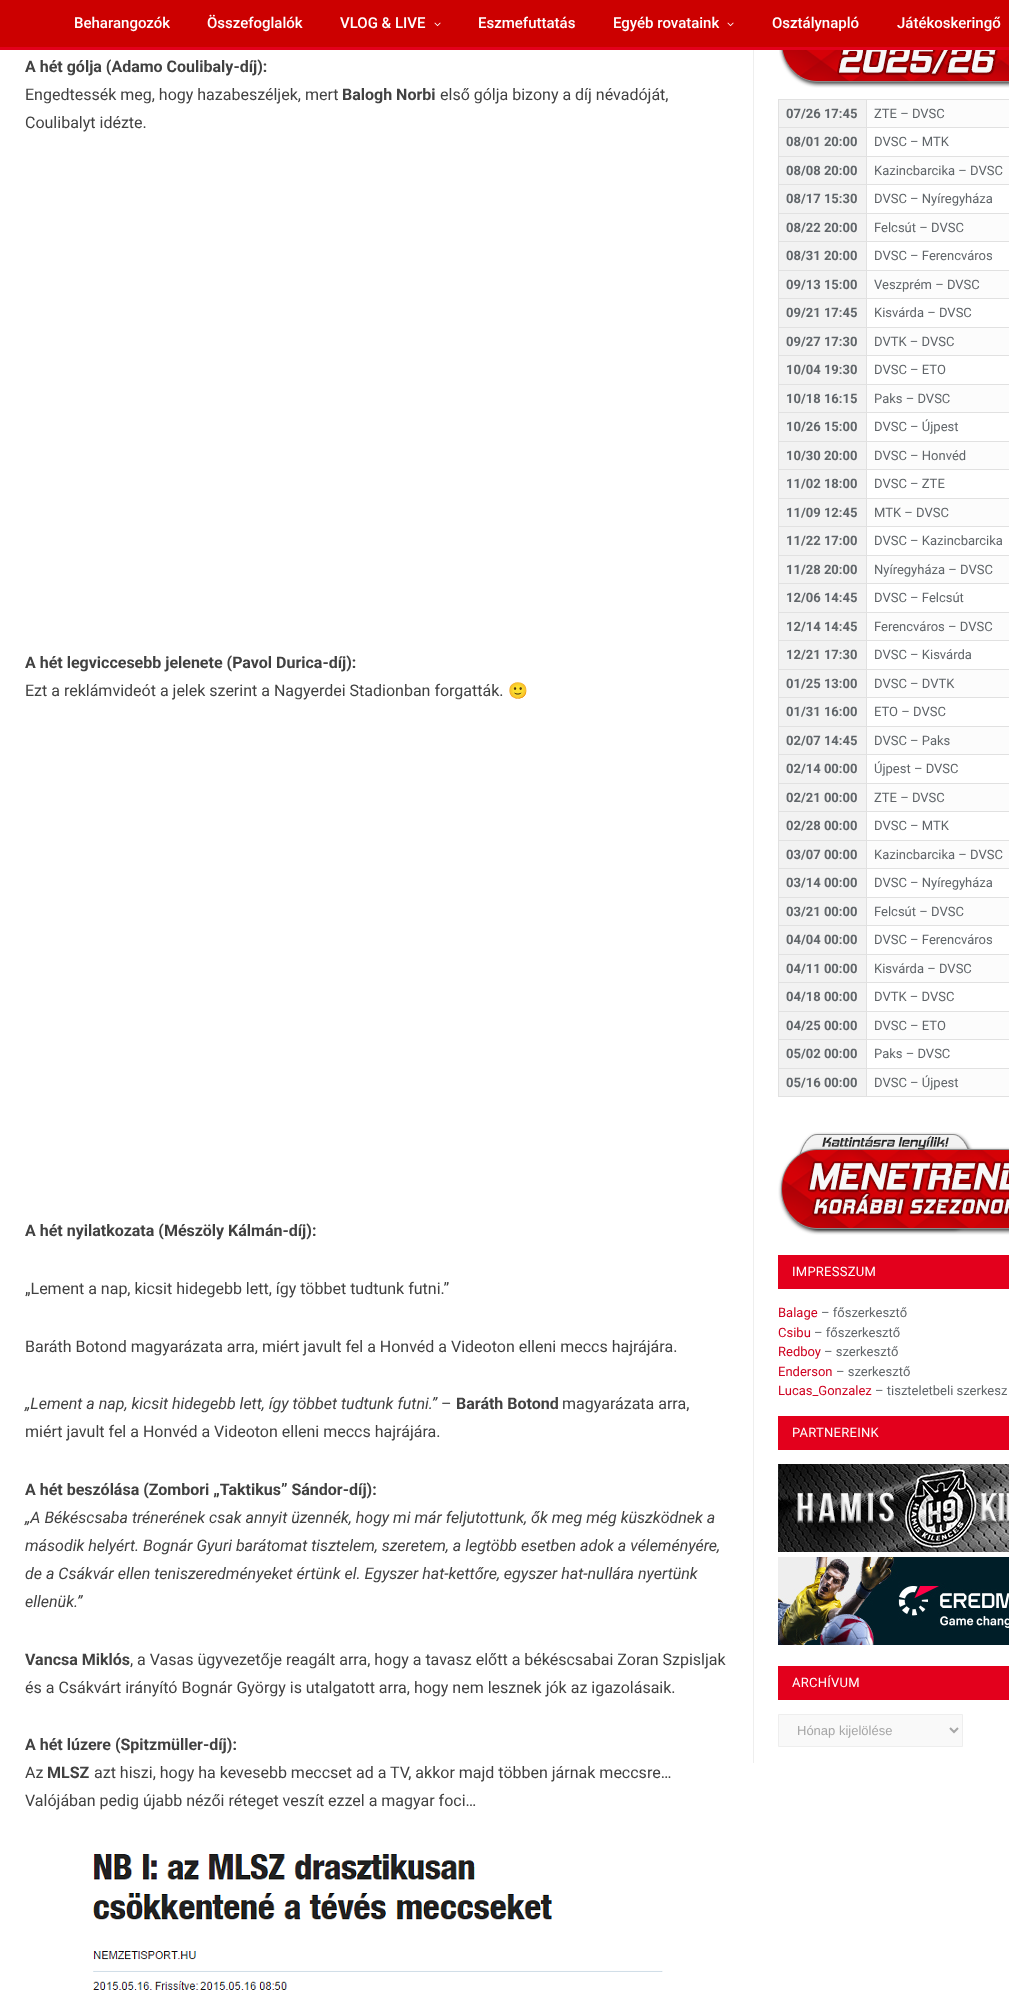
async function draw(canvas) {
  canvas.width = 1009;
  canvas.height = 2002;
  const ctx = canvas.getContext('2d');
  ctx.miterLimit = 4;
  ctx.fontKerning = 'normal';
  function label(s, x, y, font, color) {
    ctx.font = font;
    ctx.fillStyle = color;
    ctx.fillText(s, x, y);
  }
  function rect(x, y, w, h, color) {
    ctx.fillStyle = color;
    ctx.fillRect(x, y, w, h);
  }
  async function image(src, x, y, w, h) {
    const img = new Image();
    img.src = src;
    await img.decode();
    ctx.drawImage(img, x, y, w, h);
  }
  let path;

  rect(0, 0, 1009, 2002, '#fff');
  rect(0, 0, 1009, 47, '#c00');
  rect(0, 47, 1009, 3, '#e3001c');
  label('Beharangozók', 74, 28, '500 15px Roboto', '#fff');
  label('Összefoglalók', 207, 28, '500 15px Roboto', '#fff');
  label('VLOG & LIVE', 340, 28, '500 15px Roboto', '#fff');
  await image('assets/img1.png', 434, 22, 7, 5);
  label('Eszmefuttatás', 478, 28, '500 15px Roboto', '#fff');
  label('Egyéb rovataink', 613, 28, '500 15px Roboto', '#fff');
  await image('assets/img1.png', 727, 22, 7, 5);
  label('Osztálynapló', 772, 28, '500 15px Roboto', '#fff');
  label('Játékoskeringő', 897, 28, '500 15px Roboto', '#fff');
  label('A hét gólja (Adamo Coulibaly-díj):', 25, 72, 'bold 16px Roboto', '#414141');
  label('Engedtessék meg, hogy hazabeszéljek, mert', 25, 100, '16px Roboto', '#414141');
  label('Balogh Norbi', 342, 100, 'bold 16px Roboto', '#414141');
  label('első gólja bizony a díj névadóját,', 440, 100, '16px Roboto', '#414141');
  label('Coulibalyt idézte.', 25, 128, '16px Roboto', '#414141');
  label('A hét legviccesebb jelenete (Pavol Durica-díj):', 25, 668, 'bold 16px Roboto', '#414141');
  label('Ezt a reklámvideót a jelek szerint a Nagyerdei Stadionban forgatták.', 25, 696, '16px Roboto', '#414141');
  label('🙂', 508, 696, '16px Noto Color Emoji', '#414141');
  label('A hét nyilatkozata (Mészöly Kálmán-díj):', 25, 1236, 'bold 16px Roboto', '#414141');
  label('„Lement a nap, kicsit hidegebb lett, így többet tudtunk futni.”', 25, 1294, '16px Roboto', '#414141');
  label('Baráth Botond magyarázata arra, miért javult fel a Honvéd a Videoton elleni meccs hajrájára.', 25, 1352, '16px Roboto', '#414141');
  label('„Lement a nap, kicsit hidegebb lett, így többet tudtunk futni.”', 25, 1409, 'italic 16px Roboto', '#414141');
  label('–', 441, 1409, '16px Roboto', '#414141');
  label('Baráth Botond', 456, 1409, 'bold 16px Roboto', '#414141');
  label('magyarázata arra,', 562, 1409, '16px Roboto', '#414141');
  label('miért javult fel a Honvéd a Videoton elleni meccs hajrájára.', 25, 1437, '16px Roboto', '#414141');
  label('A hét beszólása (Zombori „Taktikus” Sándor-díj):', 25, 1495, 'bold 16px Roboto', '#414141');
  label('„A Békéscsaba trénerének csak annyit üzennék, hogy mi már feljutottunk, ők meg még küszködnek a', 25, 1523, 'italic 16px Roboto', '#414141');
  label('második helyért. Bognár Gyuri barátomat tisztelem, szeretem, a legtöbb esetben adok a véleményére,', 25, 1551, 'italic 16px Roboto', '#414141');
  label('de a Csákvár ellen teniszeredményeket értünk el. Egyszer hat-kettőre, egyszer hat-nullára nyertünk', 25, 1579, 'italic 16px Roboto', '#414141');
  label('ellenük.”', 25, 1607, 'italic 16px Roboto', '#414141');
  label('Vancsa Miklós', 25, 1665, 'bold 16px Roboto', '#414141');
  label(', a Vasas ügyvezetője reagált arra, hogy a tavasz előtt a békéscsabai Zoran Szpisljak', 130, 1665, '16px Roboto', '#414141');
  label('és a Csákvárt irányító Bognár György is utalgatott arra, hogy nem lesznek jók az igazolásaik.', 25, 1693, '16px Roboto', '#414141');
  label('A hét lúzere (Spitzmüller-díj):', 25, 1750, 'bold 16px Roboto', '#414141');
  label('Az', 25, 1778, '16px Roboto', '#414141');
  label('MLSZ', 47, 1778, 'bold 16px Roboto', '#414141');
  label('azt hiszi, hogy ha kevesebb meccset ad a TV, akkor majd többen járnak meccsre…', 94, 1778, '16px Roboto', '#414141');
  label('Valójában pedig újabb nézői réteget veszít ezzel a magyar foci…', 25, 1806, '16px Roboto', '#414141');
  await image('assets/img2.png', 93, 1854, 570, 136);
  rect(753, 50, 1, 1713, '#eee');
  await image('assets/img3.png', 779, 50, 230, 38);
  rect(779, 100, 87, 27, '#f2f2f2');
  rect(866, 99, 143, 1, '#e1e1e1');
  rect(866, 127, 143, 1, '#e1e1e1');
  rect(866, 156, 143, 1, '#e1e1e1');
  rect(866, 184, 143, 1, '#e1e1e1');
  rect(866, 213, 143, 1, '#e1e1e1');
  rect(866, 241, 143, 1, '#e1e1e1');
  rect(866, 270, 143, 1, '#e1e1e1');
  rect(866, 298, 143, 1, '#e1e1e1');
  rect(866, 327, 143, 1, '#e1e1e1');
  rect(866, 355, 143, 1, '#e1e1e1');
  rect(866, 384, 143, 1, '#e1e1e1');
  rect(866, 412, 143, 1, '#e1e1e1');
  rect(866, 441, 143, 1, '#e1e1e1');
  rect(866, 469, 143, 1, '#e1e1e1');
  rect(866, 498, 143, 1, '#e1e1e1');
  rect(866, 526, 143, 1, '#e1e1e1');
  rect(866, 555, 143, 1, '#e1e1e1');
  rect(866, 583, 143, 1, '#e1e1e1');
  rect(866, 612, 143, 1, '#e1e1e1');
  rect(866, 640, 143, 1, '#e1e1e1');
  rect(866, 669, 143, 1, '#e1e1e1');
  rect(866, 697, 143, 1, '#e1e1e1');
  rect(866, 726, 143, 1, '#e1e1e1');
  rect(866, 754, 143, 1, '#e1e1e1');
  rect(866, 783, 143, 1, '#e1e1e1');
  rect(866, 811, 143, 1, '#e1e1e1');
  rect(866, 840, 143, 1, '#e1e1e1');
  rect(866, 868, 143, 1, '#e1e1e1');
  rect(866, 897, 143, 1, '#e1e1e1');
  rect(866, 925, 143, 1, '#e1e1e1');
  rect(866, 954, 143, 1, '#e1e1e1');
  rect(866, 982, 143, 1, '#e1e1e1');
  rect(866, 1011, 143, 1, '#e1e1e1');
  rect(866, 1039, 143, 1, '#e1e1e1');
  rect(866, 1068, 143, 1, '#e1e1e1');
  rect(866, 1096, 143, 1, '#e1e1e1');
  rect(866, 1068, 1, 29, '#e1e1e1');
  rect(778, 1068, 89, 1, '#e1e1e1');
  rect(866, 1039, 1, 30, '#e1e1e1');
  rect(778, 1039, 89, 1, '#e1e1e1');
  rect(866, 1011, 1, 29, '#e1e1e1');
  rect(778, 1011, 89, 1, '#e1e1e1');
  rect(866, 982, 1, 30, '#e1e1e1');
  rect(778, 982, 89, 1, '#e1e1e1');
  rect(866, 954, 1, 29, '#e1e1e1');
  rect(778, 954, 89, 1, '#e1e1e1');
  rect(866, 925, 1, 30, '#e1e1e1');
  rect(778, 925, 89, 1, '#e1e1e1');
  rect(866, 897, 1, 29, '#e1e1e1');
  rect(778, 897, 89, 1, '#e1e1e1');
  rect(866, 868, 1, 30, '#e1e1e1');
  rect(778, 868, 89, 1, '#e1e1e1');
  rect(866, 840, 1, 29, '#e1e1e1');
  rect(778, 840, 89, 1, '#e1e1e1');
  rect(866, 811, 1, 30, '#e1e1e1');
  rect(778, 811, 89, 1, '#e1e1e1');
  rect(866, 783, 1, 29, '#e1e1e1');
  rect(778, 783, 89, 1, '#e1e1e1');
  rect(866, 754, 1, 30, '#e1e1e1');
  rect(778, 754, 89, 1, '#e1e1e1');
  rect(866, 726, 1, 29, '#e1e1e1');
  rect(778, 726, 89, 1, '#e1e1e1');
  rect(866, 697, 1, 30, '#e1e1e1');
  rect(778, 697, 89, 1, '#e1e1e1');
  rect(866, 669, 1, 29, '#e1e1e1');
  rect(778, 669, 89, 1, '#e1e1e1');
  rect(866, 640, 1, 30, '#e1e1e1');
  rect(778, 640, 89, 1, '#e1e1e1');
  rect(866, 612, 1, 29, '#e1e1e1');
  rect(778, 612, 89, 1, '#e1e1e1');
  rect(866, 583, 1, 30, '#e1e1e1');
  rect(778, 583, 89, 1, '#e1e1e1');
  rect(866, 555, 1, 29, '#e1e1e1');
  rect(778, 555, 89, 1, '#e1e1e1');
  rect(866, 526, 1, 30, '#e1e1e1');
  rect(778, 526, 89, 1, '#e1e1e1');
  rect(866, 498, 1, 29, '#e1e1e1');
  rect(778, 498, 89, 1, '#e1e1e1');
  rect(866, 469, 1, 30, '#e1e1e1');
  rect(778, 469, 89, 1, '#e1e1e1');
  rect(866, 441, 1, 29, '#e1e1e1');
  rect(778, 441, 89, 1, '#e1e1e1');
  rect(866, 412, 1, 30, '#e1e1e1');
  rect(778, 412, 89, 1, '#e1e1e1');
  rect(866, 384, 1, 29, '#e1e1e1');
  rect(778, 384, 89, 1, '#e1e1e1');
  rect(866, 355, 1, 30, '#e1e1e1');
  rect(778, 355, 89, 1, '#e1e1e1');
  rect(866, 327, 1, 29, '#e1e1e1');
  rect(778, 327, 89, 1, '#e1e1e1');
  rect(866, 298, 1, 30, '#e1e1e1');
  rect(778, 298, 89, 1, '#e1e1e1');
  rect(866, 270, 1, 29, '#e1e1e1');
  rect(778, 270, 89, 1, '#e1e1e1');
  rect(866, 241, 1, 30, '#e1e1e1');
  rect(778, 241, 89, 1, '#e1e1e1');
  rect(866, 213, 1, 29, '#e1e1e1');
  rect(778, 213, 89, 1, '#e1e1e1');
  rect(866, 184, 1, 30, '#e1e1e1');
  rect(778, 184, 89, 1, '#e1e1e1');
  rect(866, 156, 1, 29, '#e1e1e1');
  rect(778, 156, 89, 1, '#e1e1e1');
  rect(866, 127, 1, 30, '#e1e1e1');
  rect(778, 127, 89, 1, '#e1e1e1');
  rect(866, 99, 1, 29, '#e1e1e1');
  rect(778, 99, 89, 1, '#e1e1e1');
  rect(778, 1096, 89, 1, '#e1e1e1');
  rect(778, 1068, 1, 29, '#e1e1e1');
  rect(778, 1039, 1, 30, '#e1e1e1');
  rect(778, 1011, 1, 29, '#e1e1e1');
  rect(778, 982, 1, 30, '#e1e1e1');
  rect(778, 954, 1, 29, '#e1e1e1');
  rect(778, 925, 1, 30, '#e1e1e1');
  rect(778, 897, 1, 29, '#e1e1e1');
  rect(778, 868, 1, 30, '#e1e1e1');
  rect(778, 840, 1, 29, '#e1e1e1');
  rect(778, 811, 1, 30, '#e1e1e1');
  rect(778, 783, 1, 29, '#e1e1e1');
  rect(778, 754, 1, 30, '#e1e1e1');
  rect(778, 726, 1, 29, '#e1e1e1');
  rect(778, 697, 1, 30, '#e1e1e1');
  rect(778, 669, 1, 29, '#e1e1e1');
  rect(778, 640, 1, 30, '#e1e1e1');
  rect(778, 612, 1, 29, '#e1e1e1');
  rect(778, 583, 1, 30, '#e1e1e1');
  rect(778, 555, 1, 29, '#e1e1e1');
  rect(778, 526, 1, 30, '#e1e1e1');
  rect(778, 498, 1, 29, '#e1e1e1');
  rect(778, 469, 1, 30, '#e1e1e1');
  rect(778, 441, 1, 29, '#e1e1e1');
  rect(778, 412, 1, 30, '#e1e1e1');
  rect(778, 384, 1, 29, '#e1e1e1');
  rect(778, 355, 1, 30, '#e1e1e1');
  rect(778, 327, 1, 29, '#e1e1e1');
  rect(778, 298, 1, 30, '#e1e1e1');
  rect(778, 270, 1, 29, '#e1e1e1');
  rect(778, 241, 1, 30, '#e1e1e1');
  rect(778, 213, 1, 29, '#e1e1e1');
  rect(778, 184, 1, 30, '#e1e1e1');
  rect(778, 156, 1, 29, '#e1e1e1');
  rect(778, 127, 1, 30, '#e1e1e1');
  rect(778, 99, 1, 29, '#e1e1e1');
  label('07/26 17:45', 786, 118, 'bold 13px Roboto', '#606569');
  rect(867, 100, 142, 27, '#fcfcfc');
  label('ZTE – DVSC', 874, 118, '13px Roboto', '#606569');
  rect(779, 128, 87, 28, '#f2f2f2');
  label('08/01 20:00', 786, 146, 'bold 13px Roboto', '#606569');
  label('DVSC – MTK', 874, 146, '13px Roboto', '#606569');
  rect(779, 157, 87, 27, '#f2f2f2');
  label('08/08 20:00', 786, 175, 'bold 13px Roboto', '#606569');
  rect(867, 157, 142, 27, '#fcfcfc');
  label('Kazincbarcika – DVSC', 874, 175, '13px Roboto', '#606569');
  rect(779, 185, 87, 28, '#f2f2f2');
  label('08/17 15:30', 786, 203, 'bold 13px Roboto', '#606569');
  label('DVSC – Nyíregyháza', 874, 203, '13px Roboto', '#606569');
  rect(779, 214, 87, 27, '#f2f2f2');
  label('08/22 20:00', 786, 232, 'bold 13px Roboto', '#606569');
  rect(867, 214, 142, 27, '#fcfcfc');
  label('Felcsút – DVSC', 874, 232, '13px Roboto', '#606569');
  rect(779, 242, 87, 28, '#f2f2f2');
  label('08/31 20:00', 786, 260, 'bold 13px Roboto', '#606569');
  label('DVSC – Ferencváros', 874, 260, '13px Roboto', '#606569');
  rect(779, 271, 87, 27, '#f2f2f2');
  label('09/13 15:00', 786, 289, 'bold 13px Roboto', '#606569');
  rect(867, 271, 142, 27, '#fcfcfc');
  label('Veszprém – DVSC', 874, 289, '13px Roboto', '#606569');
  rect(779, 299, 87, 28, '#f2f2f2');
  label('09/21 17:45', 786, 317, 'bold 13px Roboto', '#606569');
  label('Kisvárda – DVSC', 874, 317, '13px Roboto', '#606569');
  rect(779, 328, 87, 27, '#f2f2f2');
  label('09/27 17:30', 786, 346, 'bold 13px Roboto', '#606569');
  rect(867, 328, 142, 27, '#fcfcfc');
  label('DVTK – DVSC', 874, 346, '13px Roboto', '#606569');
  rect(779, 356, 87, 28, '#f2f2f2');
  label('10/04 19:30', 786, 374, 'bold 13px Roboto', '#606569');
  label('DVSC – ETO', 874, 374, '13px Roboto', '#606569');
  rect(779, 385, 87, 27, '#f2f2f2');
  label('10/18 16:15', 786, 403, 'bold 13px Roboto', '#606569');
  rect(867, 385, 142, 27, '#fcfcfc');
  label('Paks – DVSC', 874, 403, '13px Roboto', '#606569');
  rect(779, 413, 87, 28, '#f2f2f2');
  label('10/26 15:00', 786, 431, 'bold 13px Roboto', '#606569');
  label('DVSC – Újpest', 874, 431, '13px Roboto', '#606569');
  rect(779, 442, 87, 27, '#f2f2f2');
  label('10/30 20:00', 786, 460, 'bold 13px Roboto', '#606569');
  rect(867, 442, 142, 27, '#fcfcfc');
  label('DVSC – Honvéd', 874, 460, '13px Roboto', '#606569');
  rect(779, 470, 87, 28, '#f2f2f2');
  label('11/02 18:00', 786, 488, 'bold 13px Roboto', '#606569');
  label('DVSC – ZTE', 874, 488, '13px Roboto', '#606569');
  rect(779, 499, 87, 27, '#f2f2f2');
  label('11/09 12:45', 786, 517, 'bold 13px Roboto', '#606569');
  rect(867, 499, 142, 27, '#fcfcfc');
  label('MTK – DVSC', 874, 517, '13px Roboto', '#606569');
  rect(779, 527, 87, 28, '#f2f2f2');
  label('11/22 17:00', 786, 545, 'bold 13px Roboto', '#606569');
  label('DVSC – Kazincbarcika', 874, 545, '13px Roboto', '#606569');
  rect(779, 556, 87, 27, '#f2f2f2');
  label('11/28 20:00', 786, 574, 'bold 13px Roboto', '#606569');
  rect(867, 556, 142, 27, '#fcfcfc');
  label('Nyíregyháza – DVSC', 874, 574, '13px Roboto', '#606569');
  rect(779, 584, 87, 28, '#f2f2f2');
  label('12/06 14:45', 786, 602, 'bold 13px Roboto', '#606569');
  label('DVSC – Felcsút', 874, 602, '13px Roboto', '#606569');
  rect(779, 613, 87, 27, '#f2f2f2');
  label('12/14 14:45', 786, 631, 'bold 13px Roboto', '#606569');
  rect(867, 613, 142, 27, '#fcfcfc');
  label('Ferencváros – DVSC', 874, 631, '13px Roboto', '#606569');
  rect(779, 641, 87, 28, '#f2f2f2');
  label('12/21 17:30', 786, 659, 'bold 13px Roboto', '#606569');
  label('DVSC – Kisvárda', 874, 659, '13px Roboto', '#606569');
  rect(779, 670, 87, 27, '#f2f2f2');
  label('01/25 13:00', 786, 688, 'bold 13px Roboto', '#606569');
  rect(867, 670, 142, 27, '#fcfcfc');
  label('DVSC – DVTK', 874, 688, '13px Roboto', '#606569');
  rect(779, 698, 87, 28, '#f2f2f2');
  label('01/31 16:00', 786, 716, 'bold 13px Roboto', '#606569');
  label('ETO – DVSC', 874, 716, '13px Roboto', '#606569');
  rect(779, 727, 87, 27, '#f2f2f2');
  label('02/07 14:45', 786, 745, 'bold 13px Roboto', '#606569');
  rect(867, 727, 142, 27, '#fcfcfc');
  label('DVSC – Paks', 874, 745, '13px Roboto', '#606569');
  rect(779, 755, 87, 28, '#f2f2f2');
  label('02/14 00:00', 786, 773, 'bold 13px Roboto', '#606569');
  label('Újpest – DVSC', 874, 773, '13px Roboto', '#606569');
  rect(779, 784, 87, 27, '#f2f2f2');
  label('02/21 00:00', 786, 802, 'bold 13px Roboto', '#606569');
  rect(867, 784, 142, 27, '#fcfcfc');
  label('ZTE – DVSC', 874, 802, '13px Roboto', '#606569');
  rect(779, 812, 87, 28, '#f2f2f2');
  label('02/28 00:00', 786, 830, 'bold 13px Roboto', '#606569');
  label('DVSC – MTK', 874, 830, '13px Roboto', '#606569');
  rect(779, 841, 87, 27, '#f2f2f2');
  label('03/07 00:00', 786, 859, 'bold 13px Roboto', '#606569');
  rect(867, 841, 142, 27, '#fcfcfc');
  label('Kazincbarcika – DVSC', 874, 859, '13px Roboto', '#606569');
  rect(779, 869, 87, 28, '#f2f2f2');
  label('03/14 00:00', 786, 887, 'bold 13px Roboto', '#606569');
  label('DVSC – Nyíregyháza', 874, 887, '13px Roboto', '#606569');
  rect(779, 898, 87, 27, '#f2f2f2');
  label('03/21 00:00', 786, 916, 'bold 13px Roboto', '#606569');
  rect(867, 898, 142, 27, '#fcfcfc');
  label('Felcsút – DVSC', 874, 916, '13px Roboto', '#606569');
  rect(779, 926, 87, 28, '#f2f2f2');
  label('04/04 00:00', 786, 944, 'bold 13px Roboto', '#606569');
  label('DVSC – Ferencváros', 874, 944, '13px Roboto', '#606569');
  rect(779, 955, 87, 27, '#f2f2f2');
  label('04/11 00:00', 786, 973, 'bold 13px Roboto', '#606569');
  rect(867, 955, 142, 27, '#fcfcfc');
  label('Kisvárda – DVSC', 874, 973, '13px Roboto', '#606569');
  rect(779, 983, 87, 28, '#f2f2f2');
  label('04/18 00:00', 786, 1001, 'bold 13px Roboto', '#606569');
  label('DVTK – DVSC', 874, 1001, '13px Roboto', '#606569');
  rect(779, 1012, 87, 27, '#f2f2f2');
  label('04/25 00:00', 786, 1030, 'bold 13px Roboto', '#606569');
  rect(867, 1012, 142, 27, '#fcfcfc');
  label('DVSC – ETO', 874, 1030, '13px Roboto', '#606569');
  rect(779, 1040, 87, 28, '#f2f2f2');
  label('05/02 00:00', 786, 1058, 'bold 13px Roboto', '#606569');
  label('Paks – DVSC', 874, 1058, '13px Roboto', '#606569');
  rect(779, 1069, 87, 27, '#f2f2f2');
  label('05/16 00:00', 786, 1087, 'bold 13px Roboto', '#606569');
  rect(867, 1069, 142, 27, '#fcfcfc');
  label('DVSC – Újpest', 874, 1087, '13px Roboto', '#606569');
  await image('assets/img4.png', 778, 1132, 231, 103);
  rect(778, 1255, 231, 34, '#e3001c');
  ctx.letterSpacing = '0.25px';
  label('IMPRESSZUM', 792, 1276, '13px Roboto', '#fff');
  ctx.letterSpacing = '0px';
  label('Balage', 778, 1317, '13px Roboto', '#ce001f');
  label('– főszerkesztő', 821, 1317, '13px Roboto', '#606569');
  label('Csibu', 778, 1337, '13px Roboto', '#ce001f');
  label('– főszerkesztő', 814, 1337, '13px Roboto', '#606569');
  label('Redboy', 778, 1356, '13px Roboto', '#ce001f');
  label('– szerkesztő', 824, 1356, '13px Roboto', '#606569');
  label('Enderson', 778, 1376, '13px Roboto', '#ce001f');
  label('– szerkesztő', 836, 1376, '13px Roboto', '#606569');
  label('Lucas_Gonzalez', 778, 1395, '13px Roboto', '#ce001f');
  label('– tiszteletbeli szerkesz', 875, 1395, '13px Roboto', '#606569');
  rect(778, 1416, 231, 34, '#e3001c');
  ctx.letterSpacing = '0.25px';
  label('PARTNEREINK', 792, 1437, '13px Roboto', '#fff');
  await image('assets/img5.png', 778, 1464, 231, 88);
  await image('assets/img6.png', 778, 1557, 231, 88);
  rect(778, 1666, 231, 34, '#e3001c');
  label('ARCHÍVUM', 792, 1687, '13px Roboto', '#fff');
  ctx.fillStyle = '#f9f9f9';
  ctx.beginPath();
  ctx.rect(778.5, 1714.5, 184, 32);
  ctx.fill();
  ctx.strokeStyle = '#eee';
  ctx.stroke();
  path = new Path2D('M950 1728L954 1732L958 1728');
  ctx.strokeStyle = '#a6a6a6';
  ctx.lineWidth = 2;
  ctx.stroke(path);
  ctx.letterSpacing = '0px';
  label('Hónap kijelölése', 797, 1735, '13px Liberation Sans', '#a6a6a6');
}

draw(document.querySelector('canvas'));
